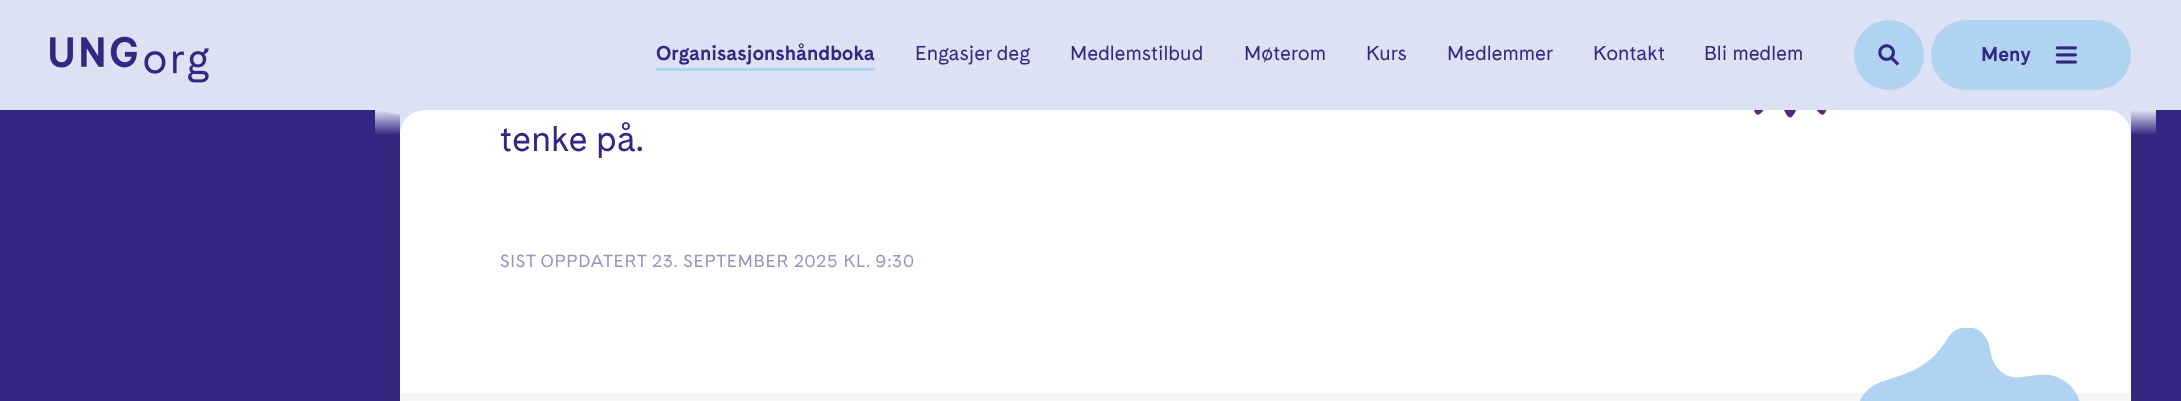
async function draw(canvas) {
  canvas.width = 2181;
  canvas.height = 401;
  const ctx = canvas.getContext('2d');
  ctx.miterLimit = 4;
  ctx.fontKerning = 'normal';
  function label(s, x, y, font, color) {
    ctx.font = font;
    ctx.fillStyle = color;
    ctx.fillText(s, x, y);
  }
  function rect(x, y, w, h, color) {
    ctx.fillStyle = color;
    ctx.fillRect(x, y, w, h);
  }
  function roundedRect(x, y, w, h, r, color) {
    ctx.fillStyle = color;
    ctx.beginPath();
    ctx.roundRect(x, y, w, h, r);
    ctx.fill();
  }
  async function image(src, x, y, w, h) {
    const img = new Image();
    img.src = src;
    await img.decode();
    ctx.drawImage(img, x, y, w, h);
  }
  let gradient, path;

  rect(0, 0, 2181, 401, '#dce1f3');
  ctx.fillStyle = '#342783';
  path = new Path2D('M2181 139H0V-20L206 61C409 141 680 157 911 102L1307 8C1552-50 1827-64 2088-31L2181-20Z');
  ctx.fill(path);
  rect(0, 139, 2181, 262, '#342783');
  ctx.fillStyle = '#1c164829';
  ctx.filter = 'blur(7.5px)';
  ctx.beginPath();
  ctx.roundRect(400, -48, 1731, 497, 25);
  ctx.fill();
  ctx.filter = 'none';
  rect(0, 0, 2181, 110, '#dce1f3');
  await image('assets/img1.png', 50, 36, 159, 47);
  label('Organisasjonshåndboka', 656, 60, 'bold 20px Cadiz', '#342783');
  rect(656, 68, 219, 3, '#b0d3f1');
  label('Engasjer deg', 915, 60, '20px Cadiz', '#342783');
  label('Medlemstilbud', 1070, 60, '20px Cadiz', '#342783');
  label('Møterom', 1244, 60, '20px Cadiz', '#342783');
  label('Kurs', 1366, 60, '20px Cadiz', '#342783');
  label('Medlemmer', 1447, 60, '20px Cadiz', '#342783');
  label('Kontakt', 1593, 60, '20px Cadiz', '#342783');
  label('Bli medlem', 1704, 60, '20px Cadiz', '#342783');
  ctx.fillStyle = '#b0d3f1';
  ctx.beginPath();
  ctx.arc(1889, 55, 35, 0, 2 * Math.PI);
  ctx.fill();
  await image('assets/img2.png', 1878, 44, 22, 22);
  roundedRect(1931, 20, 200, 70, 35, '#b0d3f1');
  label('Meny', 1981, 61, 'bold 20px Cadiz', '#342783');
  await image('assets/img3.png', 2055, 46, 22, 18);
  rect(400, 110, 1731, 283, '#fff');
  gradient = ctx.createLinearGradient(388, 110, 388, 135);
  gradient.addColorStop(0, '#dce1f3');
  gradient.addColorStop(1, '#dce1f300');
  ctx.fillStyle = gradient;
  ctx.fillRect(375, 110, 25, 24);
  ctx.fillStyle = '#dce1f3';
  path = new Path2D('M425 110C411 110 400 121 400 135V110Z');
  ctx.fill(path);
  await image('assets/img4.png', 1754, 110, 73, 8);
  label('tenke på.', 500, 151, '35px Cadiz', '#342783');
  ctx.letterSpacing = '0.7px';
  label('SIST OPPDATERT 23. SEPTEMBER 2025 KL. 9:30', 500, 267, '17.5px Cadiz', '#9a93c1');
  ctx.fillStyle = '#dce1f3';
  path = new Path2D('M2131 135C2131 121 2120 110 2106 110H2131Z');
  ctx.fill(path);
  gradient = ctx.createLinearGradient(2144, 110, 2144, 135);
  gradient.addColorStop(0, '#dce1f3');
  gradient.addColorStop(1, '#dce1f300');
  ctx.fillStyle = gradient;
  ctx.fillRect(2131, 110, 25, 24);
  rect(400, 393, 1731, 8, '#f6f6f8');
  ctx.save();
  ctx.beginPath();
  ctx.rect(1856, 328, 225, 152);
  ctx.clip();
  ctx.fillStyle = '#b0d3f1';
  path = new Path2D('M1860 401C1875 368 1919 389 1949 336C1959 323 1985 322 1990 349C1992 368 2006 380 2022 377L2037 375C2059 371 2080 388 2081 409C2082 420 2077 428 2069 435C2057 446 2045 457 2032 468C2024 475 2015 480 2004 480C1995 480 1988 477 1983 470L1975 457C1962 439 1945 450 1919 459C1872 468 1846 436 1860 401Z');
  ctx.fill(path);
  ctx.restore();
}

draw(document.querySelector('canvas'));
